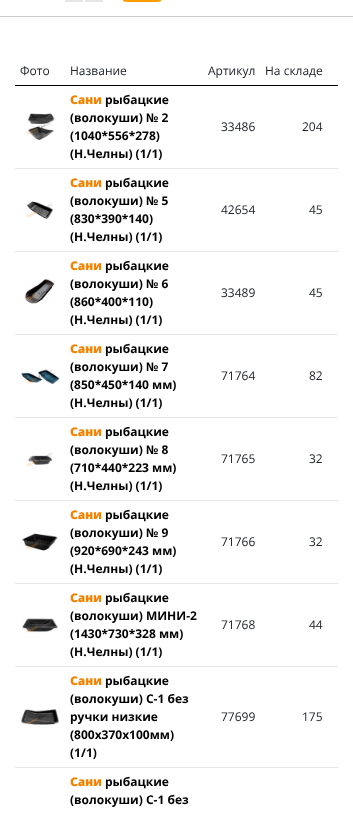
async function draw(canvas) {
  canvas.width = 353;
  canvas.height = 813;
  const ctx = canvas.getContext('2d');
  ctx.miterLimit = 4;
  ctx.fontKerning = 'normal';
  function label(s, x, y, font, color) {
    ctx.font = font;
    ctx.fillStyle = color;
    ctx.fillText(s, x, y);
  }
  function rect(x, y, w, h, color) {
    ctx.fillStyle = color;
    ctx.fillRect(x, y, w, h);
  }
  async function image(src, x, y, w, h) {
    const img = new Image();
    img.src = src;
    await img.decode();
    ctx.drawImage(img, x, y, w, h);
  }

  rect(0, 0, 353, 813, '#fff');
  rect(0, 16, 353, 1, '#ccc');
  await image('assets/img1.png', 65, 0, 38, 2);
  await image('assets/img2.png', 123, 0, 38, 2);
  label('Фото', 20, 75, '12px Open Sans', '#212529');
  label('Название', 70, 75, '12px Open Sans', '#212529');
  label('Артикул', 208, 75, '12px Open Sans', '#212529');
  label('На складе', 265, 75, '12px Open Sans', '#212529');
  rect(15, 85, 323, 1, '#000');
  await image('assets/img3.png', 26, 113, 29, 27);
  label('Сани', 70, 104, '800 12px Open Sans', '#f78000');
  label('рыбацкие', 105, 104, 'bold 12px Open Sans', '#000');
  label('(волокуши) № 2', 70, 122, 'bold 12px Open Sans', '#000');
  label('(1040*556*278)', 70, 140, 'bold 12px Open Sans', '#000');
  label('(Н.Челны) (1/1)', 70, 158, 'bold 12px Open Sans', '#000');
  label('33486', 221, 131, '12px Open Sans', '#212529');
  label('204', 302, 131, '12px Open Sans', '#212529');
  rect(15, 168, 323, 1, '#e6e6e6');
  await image('assets/img4.png', 26, 201, 27, 18);
  label('Сани', 70, 187, '800 12px Open Sans', '#f78000');
  label('рыбацкие', 105, 187, 'bold 12px Open Sans', '#000');
  label('(волокуши) № 5', 70, 205, 'bold 12px Open Sans', '#000');
  label('(830*390*140)', 70, 223, 'bold 12px Open Sans', '#000');
  label('(Н.Челны) (1/1)', 70, 241, 'bold 12px Open Sans', '#000');
  label('42654', 221, 214, '12px Open Sans', '#212529');
  label('45', 309, 214, '12px Open Sans', '#212529');
  rect(15, 251, 323, 1, '#e6e6e6');
  await image('assets/img5.png', 24, 277, 31, 27);
  label('Сани', 70, 270, '800 12px Open Sans', '#f78000');
  label('рыбацкие', 105, 270, 'bold 12px Open Sans', '#000');
  label('(волокуши) № 6', 70, 288, 'bold 12px Open Sans', '#000');
  label('(860*400*110)', 70, 306, 'bold 12px Open Sans', '#000');
  label('(Н.Челны) (1/1)', 70, 324, 'bold 12px Open Sans', '#000');
  label('33489', 221, 297, '12px Open Sans', '#212529');
  label('45', 309, 297, '12px Open Sans', '#212529');
  rect(15, 334, 323, 1, '#e6e6e6');
  await image('assets/img6.png', 21, 369, 39, 15);
  label('Сани', 70, 353, '800 12px Open Sans', '#f78000');
  label('рыбацкие', 105, 353, 'bold 12px Open Sans', '#000');
  label('(волокуши) № 7', 70, 371, 'bold 12px Open Sans', '#000');
  label('(850*450*140 мм)', 70, 389, 'bold 12px Open Sans', '#000');
  label('(Н.Челны) (1/1)', 70, 407, 'bold 12px Open Sans', '#000');
  label('71764', 221, 380, '12px Open Sans', '#212529');
  label('82', 309, 380, '12px Open Sans', '#212529');
  rect(15, 417, 323, 1, '#e6e6e6');
  await image('assets/img7.png', 26, 452, 27, 15);
  label('Сани', 70, 436, '800 12px Open Sans', '#f78000');
  label('рыбацкие', 105, 436, 'bold 12px Open Sans', '#000');
  label('(волокуши) № 8', 70, 454, 'bold 12px Open Sans', '#000');
  label('(710*440*223 мм)', 70, 472, 'bold 12px Open Sans', '#000');
  label('(Н.Челны) (1/1)', 70, 490, 'bold 12px Open Sans', '#000');
  label('71765', 221, 463, '12px Open Sans', '#212529');
  label('32', 309, 463, '12px Open Sans', '#212529');
  rect(15, 500, 323, 1, '#e6e6e6');
  await image('assets/img8.png', 22, 533, 36, 18);
  label('Сани', 70, 519, '800 12px Open Sans', '#f78000');
  label('рыбацкие', 105, 519, 'bold 12px Open Sans', '#000');
  label('(волокуши) № 9', 70, 537, 'bold 12px Open Sans', '#000');
  label('(920*690*243 мм)', 70, 555, 'bold 12px Open Sans', '#000');
  label('(Н.Челны) (1/1)', 70, 573, 'bold 12px Open Sans', '#000');
  label('71766', 221, 546, '12px Open Sans', '#212529');
  label('32', 309, 546, '12px Open Sans', '#212529');
  rect(15, 583, 323, 1, '#e6e6e6');
  await image('assets/img9.png', 22, 618, 36, 15);
  label('Сани', 70, 602, '800 12px Open Sans', '#f78000');
  label('рыбацкие', 105, 602, 'bold 12px Open Sans', '#000');
  label('(волокуши) МИНИ-2', 70, 620, 'bold 12px Open Sans', '#000');
  label('(1430*730*328 мм)', 70, 638, 'bold 12px Open Sans', '#000');
  label('(Н.Челны) (1/1)', 70, 656, 'bold 12px Open Sans', '#000');
  label('71768', 221, 629, '12px Open Sans', '#212529');
  label('44', 309, 629, '12px Open Sans', '#212529');
  rect(15, 666, 323, 1, '#e6e6e6');
  await image('assets/img10.png', 21, 709, 39, 16);
  label('Сани', 70, 685, '800 12px Open Sans', '#f78000');
  label('рыбацкие', 105, 685, 'bold 12px Open Sans', '#000');
  label('(волокуши) С-1 без', 70, 703, 'bold 12px Open Sans', '#000');
  label('ручки низкие', 70, 721, 'bold 12px Open Sans', '#000');
  label('(800х370х100мм)', 70, 739, 'bold 12px Open Sans', '#000');
  label('(1/1)', 70, 757, 'bold 12px Open Sans', '#000');
  label('77699', 221, 721, '12px Open Sans', '#212529');
  label('175', 302, 721, '12px Open Sans', '#212529');
  rect(15, 767, 323, 1, '#e6e6e6');
  label('Сани', 70, 786, '800 12px Open Sans', '#f78000');
  label('рыбацкие', 105, 786, 'bold 12px Open Sans', '#000');
  label('(волокуши) С-1 без', 70, 804, 'bold 12px Open Sans', '#000');
}

draw(document.querySelector('canvas'));
